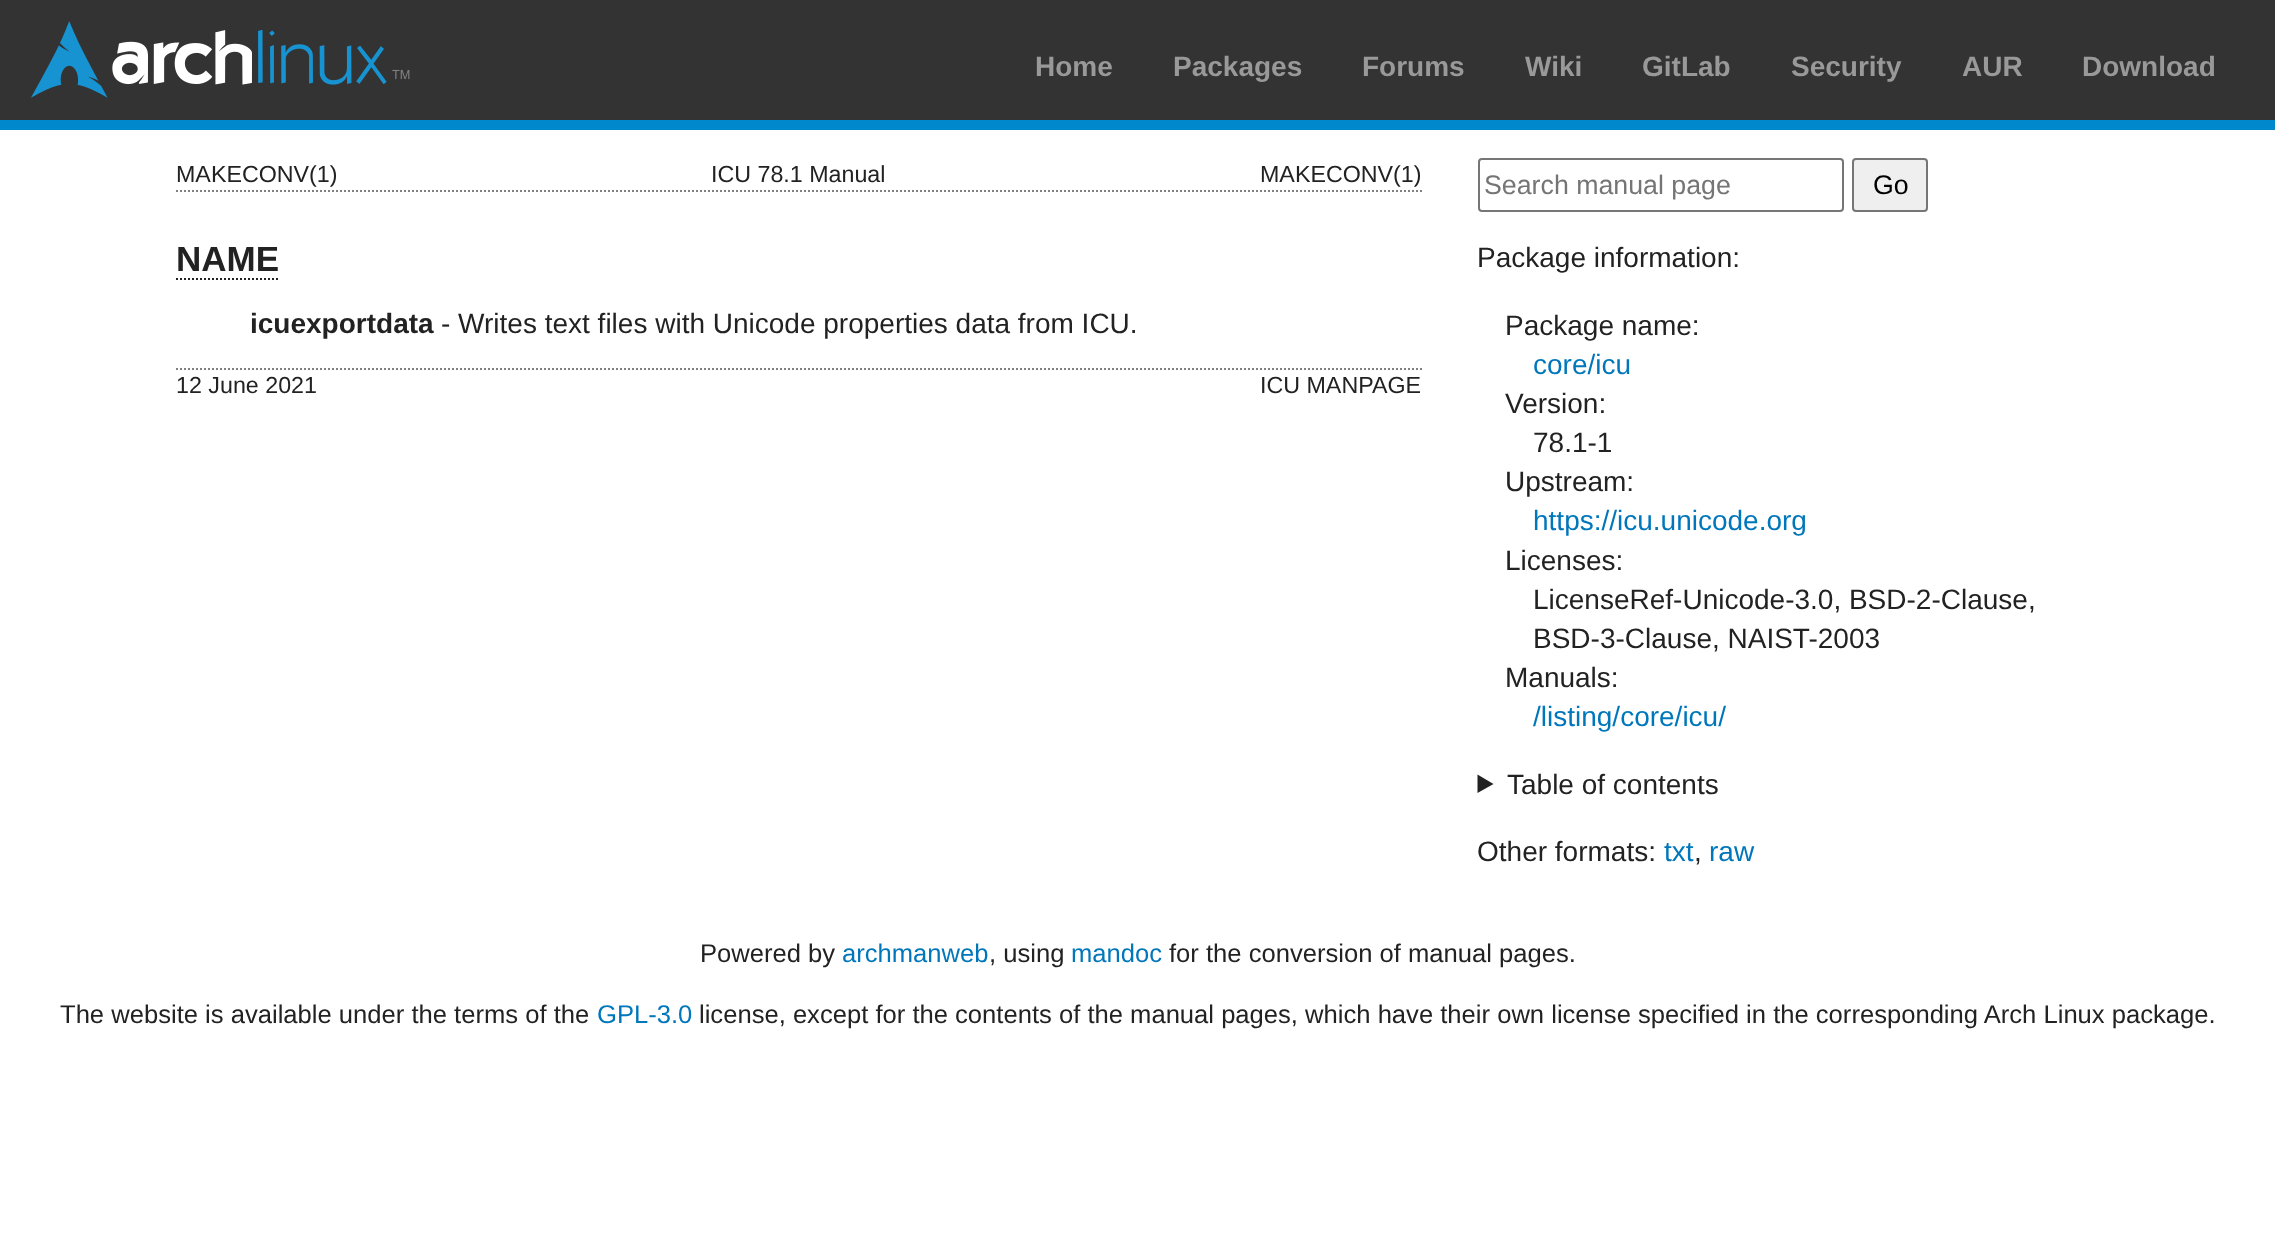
async function draw(canvas) {
  canvas.width = 2275;
  canvas.height = 1253;
  const ctx = canvas.getContext('2d');
  ctx.miterLimit = 4;
  ctx.fontKerning = 'normal';
  function label(s, x, y, font, color) {
    ctx.font = font;
    ctx.fillStyle = color;
    ctx.fillText(s, x, y);
  }
  function rect(x, y, w, h, color) {
    ctx.fillStyle = color;
    ctx.fillRect(x, y, w, h);
  }
  async function image(src, x, y, w, h) {
    const img = new Image();
    img.src = src;
    await img.decode();
    ctx.drawImage(img, x, y, w, h);
  }
  let path;

  rect(0, 0, 2275, 1253, '#fff');
  rect(0, 0, 2275, 120, '#333');
  rect(0, 120, 2275, 10, '#08c');
  await image('assets/img1.png', 31, 21, 379, 77);
  label('Home', 1035, 76, 'bold 28px Liberation Sans', '#999');
  label('Packages', 1173, 76, 'bold 28px Liberation Sans', '#999');
  label('Forums', 1362, 76, 'bold 28px Liberation Sans', '#999');
  label('Wiki', 1525, 76, 'bold 28px Liberation Sans', '#999');
  label('GitLab', 1642, 76, 'bold 28px Liberation Sans', '#999');
  label('Security', 1791, 76, 'bold 28px Liberation Sans', '#999');
  label('AUR', 1962, 76, 'bold 28px Liberation Sans', '#999');
  label('Download', 2082, 76, 'bold 28px Liberation Sans', '#999');
  path = new Path2D('M176 191H1422');
  ctx.strokeStyle = '#808080';
  ctx.lineWidth = 2;
  ctx.setLineDash([2, 2]);
  ctx.stroke(path);
  label('MAKECONV(1)', 176, 182, '23.25px Liberation Sans', '#222');
  label('ICU 78.1 Manual', 711, 182, '23.25px Liberation Sans', '#222');
  label('MAKECONV(1)', 1260, 182, '23.25px Liberation Sans', '#222');
  label('NAME', 176, 271, 'bold 35px Liberation Sans', '#222');
  path = new Path2D('M176 279H278');
  ctx.strokeStyle = '#222';
  ctx.stroke(path);
  label('icuexportdata', 250, 333, 'bold 28px Liberation Sans', '#222');
  label('- Writes text files with Unicode properties data from ICU.', 441, 333, '28px Liberation Sans', '#222');
  path = new Path2D('M176 369H1422');
  ctx.strokeStyle = '#808080';
  ctx.stroke(path);
  label('12 June 2021', 176, 393, '23.25px Liberation Sans', '#222');
  label('ICU MANPAGE', 1260, 393, '23.25px Liberation Sans', '#222');
  ctx.beginPath();
  ctx.roundRect(1479, 159, 364, 52, 3);
  ctx.strokeStyle = '#767676';
  ctx.setLineDash([]);
  ctx.stroke();
  label('Search manual page', 1484, 194, '26.75px Liberation Sans', '#757575');
  ctx.fillStyle = '#efefef';
  ctx.beginPath();
  ctx.roundRect(1853, 159, 74, 52, 3);
  ctx.fill();
  ctx.stroke();
  label('Go', 1873, 194, '26.75px Liberation Sans', '#000');
  label('Package information:', 1477, 267, '28px Liberation Sans', '#222');
  label('Package name:', 1505, 335, '28px Liberation Sans', '#222');
  label('core/icu', 1533, 374, '28px Liberation Sans', '#07b');
  label('Version:', 1505, 413, '28px Liberation Sans', '#222');
  label('78.1-1', 1533, 452, '28px Liberation Sans', '#222');
  label('Upstream:', 1505, 491, '28px Liberation Sans', '#222');
  label('https://icu.unicode.org', 1533, 530, '28px Liberation Sans', '#07b');
  label('Licenses:', 1505, 570, '28px Liberation Sans', '#222');
  label('LicenseRef-Unicode-3.0, BSD-2-Clause,', 1533, 609, '28px Liberation Sans', '#222');
  label('BSD-3-Clause, NAIST-2003', 1533, 648, '28px Liberation Sans', '#222');
  label('Manuals:', 1505, 687, '28px Liberation Sans', '#222');
  label('/listing/core/icu/', 1533, 726, '28px Liberation Sans', '#07b');
  ctx.fillStyle = '#222';
  path = new Path2D('M1477.5 774.5L1493.5 784L1477.5 793Z');
  ctx.fill(path);
  label('Table of contents', 1507, 794, '28px Liberation Sans', '#222');
  label('Other formats:', 1477, 861, '28px Liberation Sans', '#222');
  label('txt', 1664, 861, '28px Liberation Sans', '#07b');
  label(',', 1694, 861, '28px Liberation Sans', '#222');
  label('raw', 1709, 861, '28px Liberation Sans', '#07b');
  label('Powered by', 700, 962, '25.6px Liberation Sans', '#222');
  label('archmanweb', 842, 962, '25.6px Liberation Sans', '#07b');
  label(', using', 989, 962, '25.6px Liberation Sans', '#222');
  label('mandoc', 1071, 962, '25.6px Liberation Sans', '#07b');
  label('for the conversion of manual pages.', 1169, 962, '25.6px Liberation Sans', '#222');
  label('The website is available under the terms of the', 60, 1023, '25.6px Liberation Sans', '#222');
  label('GPL-3.0', 597, 1023, '25.6px Liberation Sans', '#07b');
  label('license, except for the contents of the manual pages, which have their own license specified in the corresponding Arch Linux package.', 699, 1023, '25.6px Liberation Sans', '#222');
}

draw(document.querySelector('canvas'));
